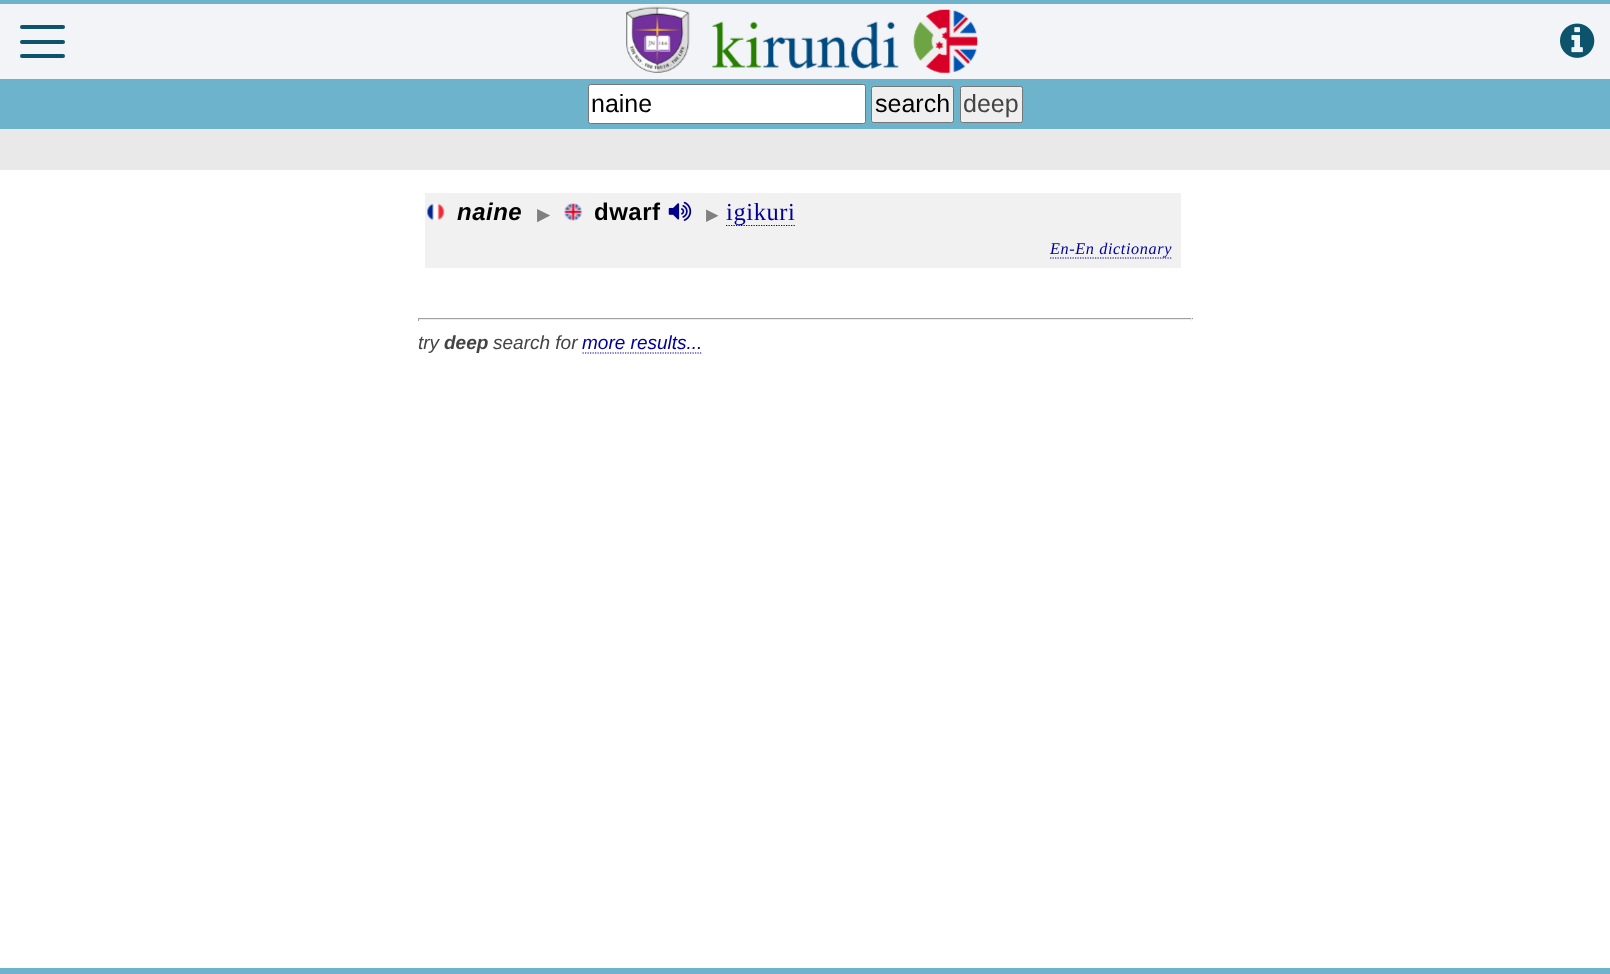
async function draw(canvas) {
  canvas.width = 1610;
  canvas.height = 974;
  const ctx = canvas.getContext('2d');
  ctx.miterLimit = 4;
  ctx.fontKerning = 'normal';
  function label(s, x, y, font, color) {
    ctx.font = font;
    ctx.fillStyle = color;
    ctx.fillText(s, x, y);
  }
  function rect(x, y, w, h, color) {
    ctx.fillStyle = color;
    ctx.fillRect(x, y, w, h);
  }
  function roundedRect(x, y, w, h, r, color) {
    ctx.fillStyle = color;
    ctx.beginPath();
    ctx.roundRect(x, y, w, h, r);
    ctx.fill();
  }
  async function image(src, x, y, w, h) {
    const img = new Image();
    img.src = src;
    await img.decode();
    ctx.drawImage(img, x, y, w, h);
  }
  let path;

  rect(0, 0, 1610, 974, '#fff');
  rect(0, 4, 1610, 75, '#f2f4f7');
  rect(0, 0, 1610, 4, '#6eb3cc');
  roundedRect(20, 25, 45, 4, 2, '#0e536c');
  roundedRect(20, 40, 45, 4, 2, '#0e536c');
  roundedRect(20, 54, 45, 4, 2, '#0e536c');
  await image('assets/img1.png', 626, 6, 64, 67);
  await image('assets/img2.png', 712, 9, 266, 65);
  await image('assets/img3.png', 1560, 23, 35, 35);
  rect(0, 79, 1610, 50, '#6eb3cc');
  ctx.fillStyle = '#fff';
  ctx.beginPath();
  ctx.roundRect(588.5, 84.5, 277, 39, 2);
  ctx.fill();
  ctx.strokeStyle = '#767676';
  ctx.stroke();
  label('naine', 591, 112, '25px Liberation Sans', '#000');
  ctx.fillStyle = '#efefef';
  ctx.beginPath();
  ctx.roundRect(871.5, 86.5, 82, 36, 2);
  ctx.fill();
  ctx.stroke();
  label('search', 875, 112, '25px Liberation Sans', '#000');
  ctx.fillStyle = '#efefef';
  ctx.beginPath();
  ctx.roundRect(960.5, 86.5, 62, 36, 2);
  ctx.fill();
  ctx.stroke();
  label('deep', 963, 112, '25px Liberation Sans', '#444');
  rect(0, 129, 1610, 41, '#e9e9e9');
  rect(425, 193, 756, 75, '#f1f1f1');
  await image('assets/img4.png', 427, 203, 18, 18);
  ctx.letterSpacing = '0.5px';
  label('naine', 457, 220, 'italic bold 24px Liberation Sans', '#000');
  label('▶', 537, 220, 'bold 16.25px DejaVu Sans', '#808080');
  await image('assets/img5.png', 564, 203, 18, 18);
  label('dwarf', 594, 220, 'bold 24px Liberation Sans', '#000');
  await image('assets/img6.png', 668, 201, 24, 20);
  label('▶', 706, 220, '16.25px DejaVu Sans', '#808080');
  path = new Path2D('M726 225.5H796');
  ctx.strokeStyle = '#009';
  ctx.lineWidth = 1.2;
  ctx.setLineDash([1.25, 1.25]);
  ctx.stroke(path);
  ctx.letterSpacing = '0.6px';
  label('igikuri', 726, 220, '24.5px Liberation Serif', '#009');
  path = new Path2D('M1050 258H1172.5');
  ctx.stroke(path);
  label('En-En dictionary', 1050, 254, 'italic 16.25px Liberation Serif', '#009');
  rect(418, 318, 775, 1, '#9f9f9f');
  rect(1191, 318, 1, 3, '#eee');
  rect(418, 319, 775, 1, '#eee');
  rect(418, 318, 1, 3, '#9f9f9f');
  ctx.letterSpacing = '0px';
  label('try', 418, 349, 'italic 19px Liberation Sans', '#444');
  label('deep', 444, 349, 'italic bold 19px Liberation Sans', '#444');
  label('search for', 493, 349, 'italic 19px Liberation Sans', '#444');
  label('more results...', 582, 349, 'italic 19px Liberation Sans', '#009');
  path = new Path2D('M582.5 353H702.5');
  ctx.stroke(path);
  rect(0, 968, 1610, 6, '#6eb3cc');
}

draw(document.querySelector('canvas'));
